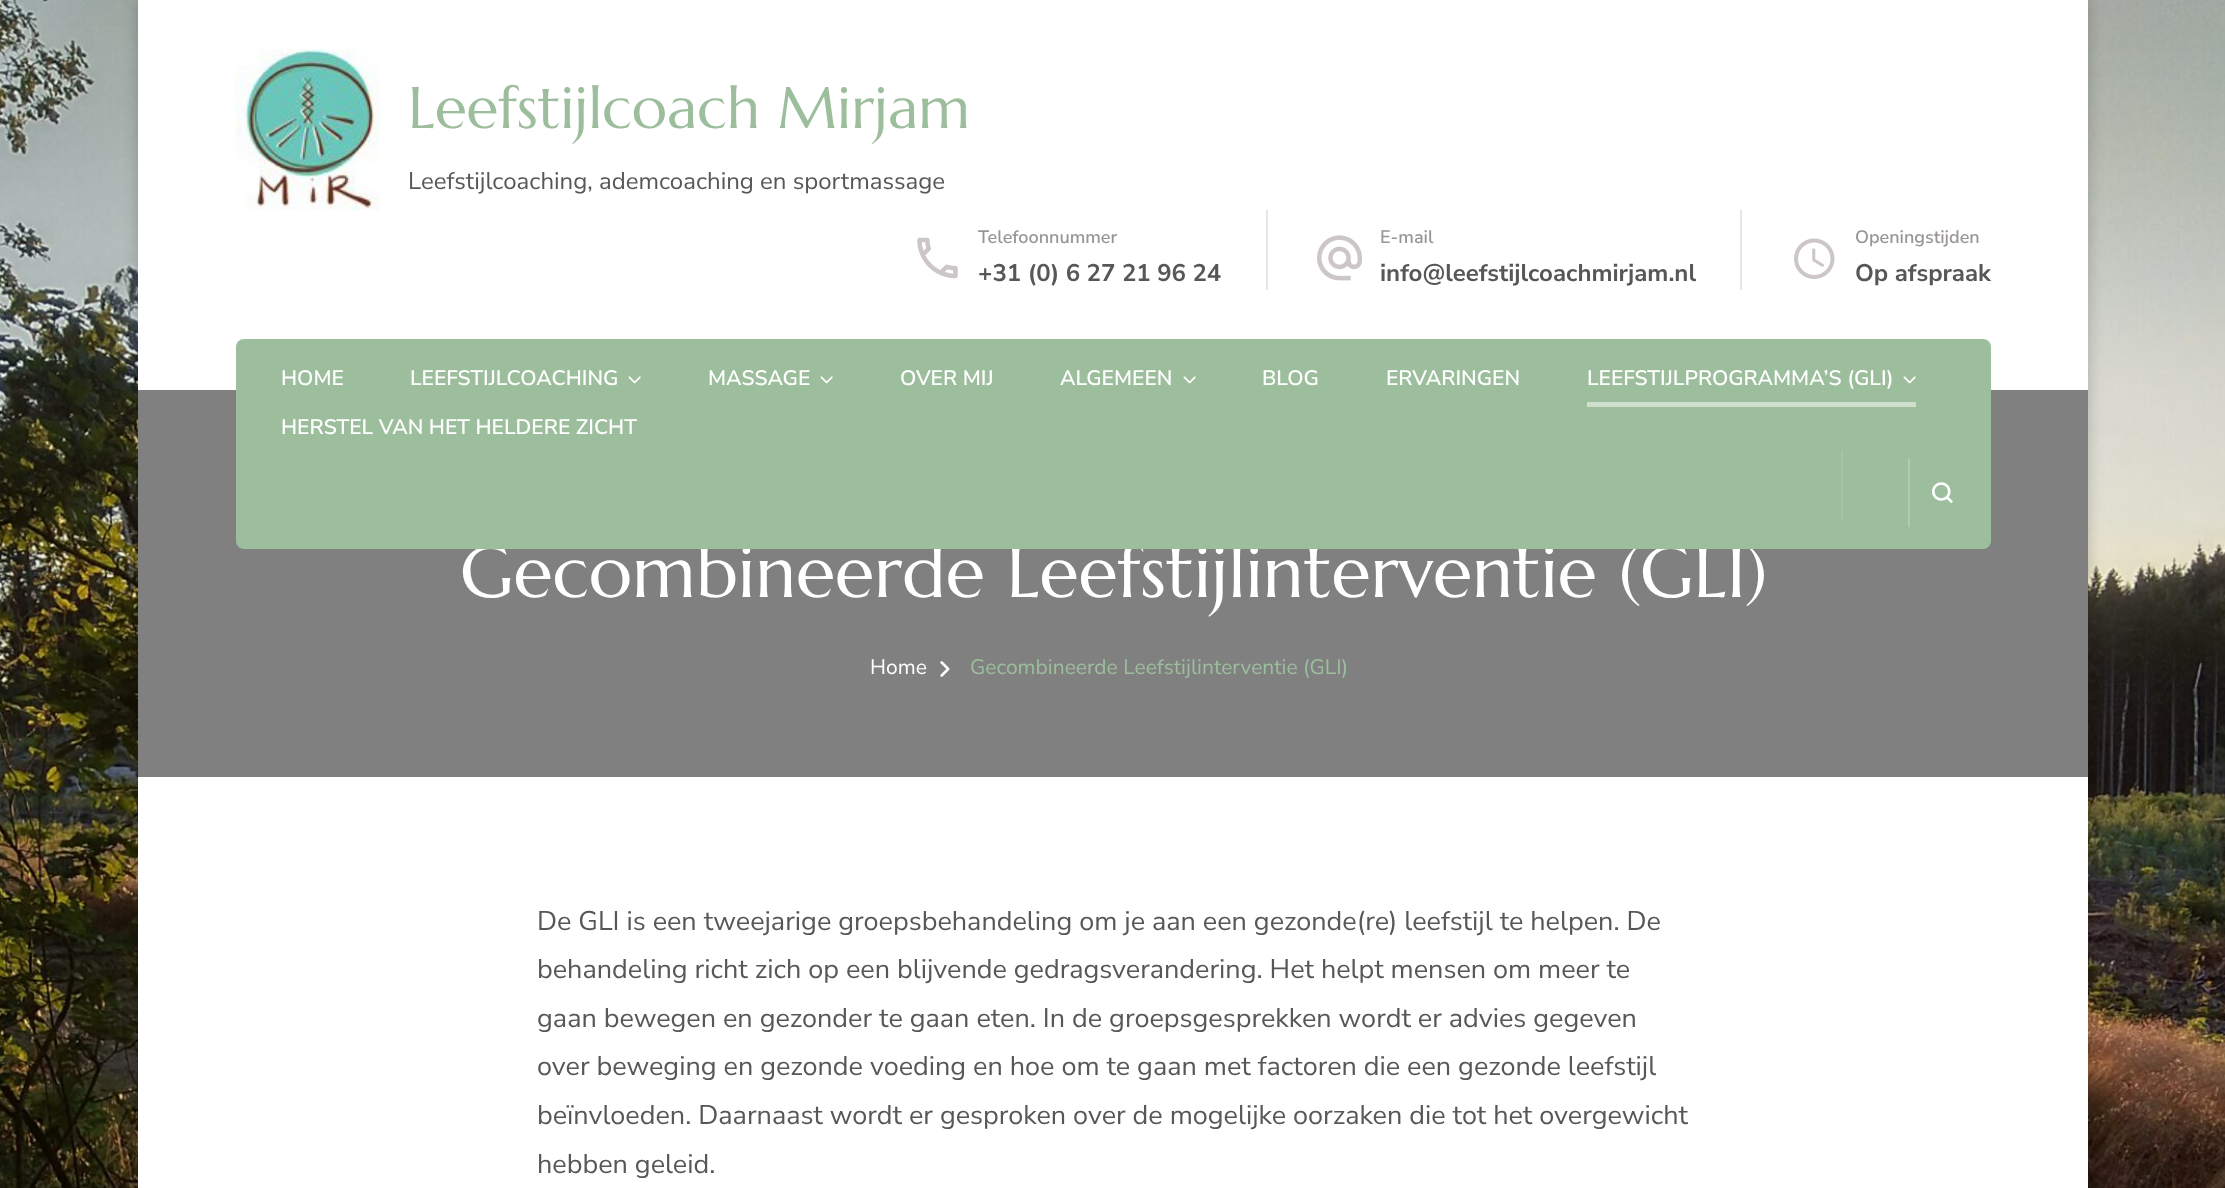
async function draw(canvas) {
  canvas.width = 2225;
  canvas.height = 1188;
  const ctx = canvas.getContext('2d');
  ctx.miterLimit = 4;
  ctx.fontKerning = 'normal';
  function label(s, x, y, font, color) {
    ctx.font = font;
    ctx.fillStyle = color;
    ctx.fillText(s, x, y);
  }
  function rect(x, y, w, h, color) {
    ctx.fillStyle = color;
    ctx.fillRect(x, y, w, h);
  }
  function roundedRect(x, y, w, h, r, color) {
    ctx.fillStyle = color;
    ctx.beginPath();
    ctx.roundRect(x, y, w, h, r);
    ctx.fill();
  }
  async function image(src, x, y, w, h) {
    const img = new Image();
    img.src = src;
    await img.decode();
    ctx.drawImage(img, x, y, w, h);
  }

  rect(0, 0, 2225, 1188, '#fff');
  await image('assets/img1.png', 0, 0, 2225, 1188);
  ctx.fillStyle = '#00000033';
  ctx.filter = 'blur(7.5px)';
  ctx.beginPath();
  ctx.rect(138, 0, 1950, 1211);
  ctx.fill();
  ctx.filter = 'none';
  rect(138, 0, 1950, 1188, '#fff');
  await image('assets/img2.png', 235, 49, 145, 161);
  label('Leefstijlcoach Mirjam', 408, 128, '58.5px Marcellus', '#9cbe9c');
  label('Leefstijlcoaching, ademcoaching en sportmassage', 408, 189, '24px Nunito Sans', '#585656');
  await image('assets/img3.png', 917, 237, 41, 42);
  label('Telefoonnummer', 978, 243, '600 18px Nunito Sans', '#999596');
  label('+31 (0) 6 27 21 96 24', 978, 281, 'bold 24px Nunito Sans', '#585656');
  rect(1266, 210, 2, 80, '#e6e6e6');
  await image('assets/img4.png', 1317, 235, 45, 46);
  label('E-mail', 1380, 243, '600 18px Nunito Sans', '#999596');
  label('info@leefstijlcoachmirjam.nl', 1380, 281, 'bold 24px Nunito Sans', '#585656');
  rect(1740, 210, 2, 80, '#e6e6e6');
  await image('assets/img5.png', 1794, 238, 41, 41);
  label('Openingstijden', 1855, 243, '600 18px Nunito Sans', '#999596');
  label('Op afspraak', 1855, 281, 'bold 24px Nunito Sans', '#585656');
  rect(138, 390, 1950, 387, '#808080');
  label('Gecombineerde Leefstijlinterventie (GLI)', 460, 597, '72px Marcellus', '#fff');
  roundedRect(236, 339, 1755, 210, 8, '#9cbe9c');
  label('HOME', 281, 385, '600 21px Nunito Sans', '#fff');
  label('LEEFSTIJLCOACHING', 410, 385, '600 21px Nunito Sans', '#fff');
  await image('assets/img6.png', 628, 376, 13, 8);
  label('MASSAGE', 708, 385, '600 21px Nunito Sans', '#fff');
  await image('assets/img6.png', 820, 376, 13, 8);
  label('OVER MIJ', 900, 385, '600 21px Nunito Sans', '#fff');
  label('ALGEMEEN', 1060, 385, '600 21px Nunito Sans', '#fff');
  await image('assets/img6.png', 1183, 376, 13, 8);
  label('BLOG', 1262, 385, '600 21px Nunito Sans', '#fff');
  label('ERVARINGEN', 1386, 385, '600 21px Nunito Sans', '#fff');
  label('LEEFSTIJLPROGRAMMA’S (GLI)', 1587, 385, '600 21px Nunito Sans', '#fff');
  rect(1587, 402, 329, 5, '#cedfce');
  await image('assets/img6.png', 1903, 376, 13, 8);
  label('HERSTEL VAN HET HELDERE ZICHT', 281, 434, '600 21px Nunito Sans', '#fff');
  rect(1841, 452, 2, 67, '#a6c5a6');
  rect(1908, 459, 2, 68, '#b0cbb0');
  await image('assets/img7.png', 1932, 482, 21, 22);
  label('Home', 870, 674, '21px Nunito Sans', '#fff');
  await image('assets/img8.png', 940, 661, 10, 16);
  label('Gecombineerde Leefstijlinterventie (GLI)', 970, 674, '21px Nunito Sans', '#9cbe9c');
  label('De GLI is een tweejarige groepsbehandeling om je aan een gezonde(re) leefstijl te helpen. De', 537, 930, '27px Nunito Sans', '#585656');
  label('behandeling richt zich op een blijvende gedragsverandering. Het helpt mensen om meer te', 537, 978, '27px Nunito Sans', '#585656');
  label('gaan bewegen en gezonder te gaan eten. In de groepsgesprekken wordt er advies gegeven', 537, 1027, '27px Nunito Sans', '#585656');
  label('over beweging en gezonde voeding en hoe om te gaan met factoren die een gezonde leefstijl', 537, 1075, '27px Nunito Sans', '#585656');
  label('beïnvloeden. Daarnaast wordt er gesproken over de mogelijke oorzaken die tot het overgewicht', 537, 1124, '27px Nunito Sans', '#585656');
  label('hebben geleid.', 537, 1173, '27px Nunito Sans', '#585656');
}

draw(document.querySelector('canvas'));
